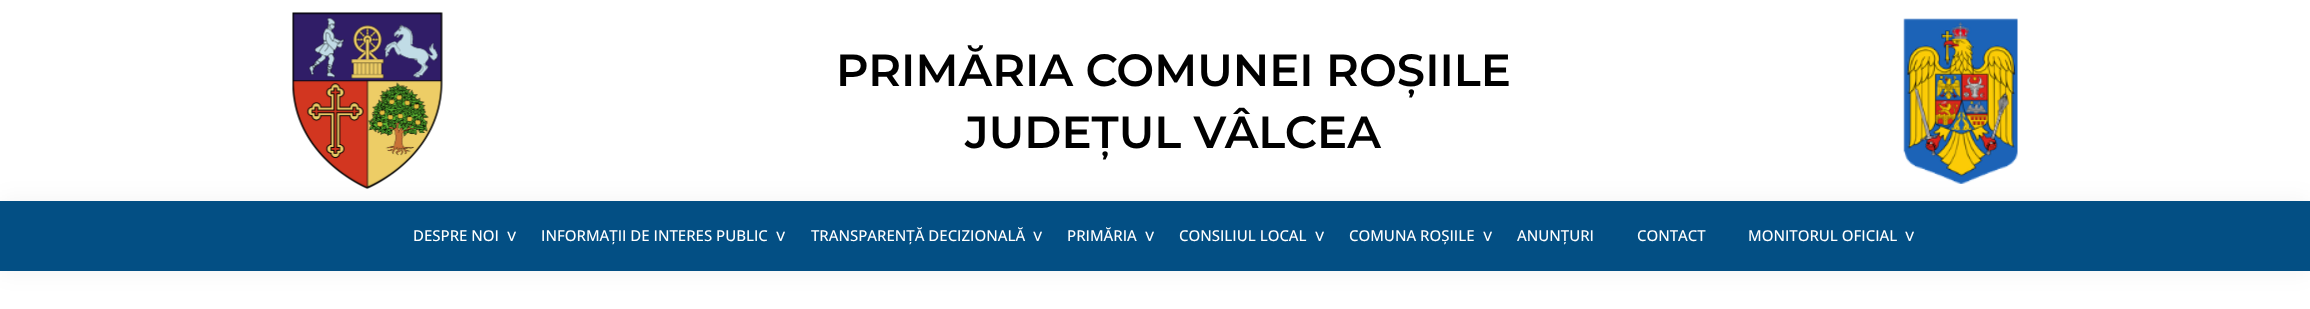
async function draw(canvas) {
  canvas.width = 2310;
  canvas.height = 309;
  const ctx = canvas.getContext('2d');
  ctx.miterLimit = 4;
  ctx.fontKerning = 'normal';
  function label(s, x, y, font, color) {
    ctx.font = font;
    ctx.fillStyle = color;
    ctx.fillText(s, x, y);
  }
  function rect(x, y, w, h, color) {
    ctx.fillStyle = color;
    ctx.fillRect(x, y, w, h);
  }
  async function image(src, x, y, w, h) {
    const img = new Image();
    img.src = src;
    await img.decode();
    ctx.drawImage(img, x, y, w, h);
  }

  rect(0, 0, 2310, 309, '#fff');
  await image('assets/img1.png', 292, 12, 151, 177);
  label('PRIMĂRIA COMUNEI ROȘIILE', 836, 86, '600 45px Montserrat', '#000');
  label('JUDEȚUL VÂLCEA', 965, 148, '600 45px Montserrat', '#000');
  await image('assets/img2.png', 1903, 18, 115, 166);
  ctx.fillStyle = '#0000000d';
  ctx.filter = 'blur(12.5px)';
  ctx.beginPath();
  ctx.rect(0, 201, 2310, 70);
  ctx.fill();
  ctx.filter = 'none';
  rect(0, 201, 2310, 70, '#034f84');
  label('DESPRE NOI', 413, 241, '500 15px Open Sans', '#fff');
  ctx.font = '18px DejaVu Sans Mono';
  ctx.save();
  ctx.translate(506, 231);
  ctx.rotate(90 * Math.PI / 180);
  ctx.fillText('>', 0, 0);
  ctx.restore();
  label('INFORMAȚII DE INTERES PUBLIC', 541, 241, '500 15px Open Sans', '#fff');
  ctx.font = '18px DejaVu Sans Mono';
  ctx.save();
  ctx.translate(775, 231);
  ctx.rotate(90 * Math.PI / 180);
  ctx.fillText('>', 0, 0);
  ctx.restore();
  label('TRANSPARENȚĂ DECIZIONALĂ', 811, 241, '500 15px Open Sans', '#fff');
  ctx.font = '18px DejaVu Sans Mono';
  ctx.save();
  ctx.translate(1032, 231);
  ctx.rotate(90 * Math.PI / 180);
  ctx.fillText('>', 0, 0);
  ctx.restore();
  label('PRIMĂRIA', 1067, 241, '500 15px Open Sans', '#fff');
  ctx.font = '18px DejaVu Sans Mono';
  ctx.save();
  ctx.translate(1144, 231);
  ctx.rotate(90 * Math.PI / 180);
  ctx.fillText('>', 0, 0);
  ctx.restore();
  label('CONSILIUL LOCAL', 1179, 241, '500 15px Open Sans', '#fff');
  ctx.font = '18px DejaVu Sans Mono';
  ctx.save();
  ctx.translate(1314, 231);
  ctx.rotate(90 * Math.PI / 180);
  ctx.fillText('>', 0, 0);
  ctx.restore();
  label('COMUNA ROȘIILE', 1349, 241, '500 15px Open Sans', '#fff');
  ctx.font = '18px DejaVu Sans Mono';
  ctx.save();
  ctx.translate(1482, 231);
  ctx.rotate(90 * Math.PI / 180);
  ctx.fillText('>', 0, 0);
  ctx.restore();
  label('ANUNȚURI', 1517, 241, '500 15px Open Sans', '#fff');
  label('CONTACT', 1637, 241, '500 15px Open Sans', '#fff');
  label('MONITORUL OFICIAL', 1748, 241, '500 15px Open Sans', '#fff');
  ctx.font = '18px DejaVu Sans Mono';
  ctx.save();
  ctx.translate(1904, 231);
  ctx.rotate(90 * Math.PI / 180);
  ctx.fillText('>', 0, 0);
  ctx.restore();
}

draw(document.querySelector('canvas'));
